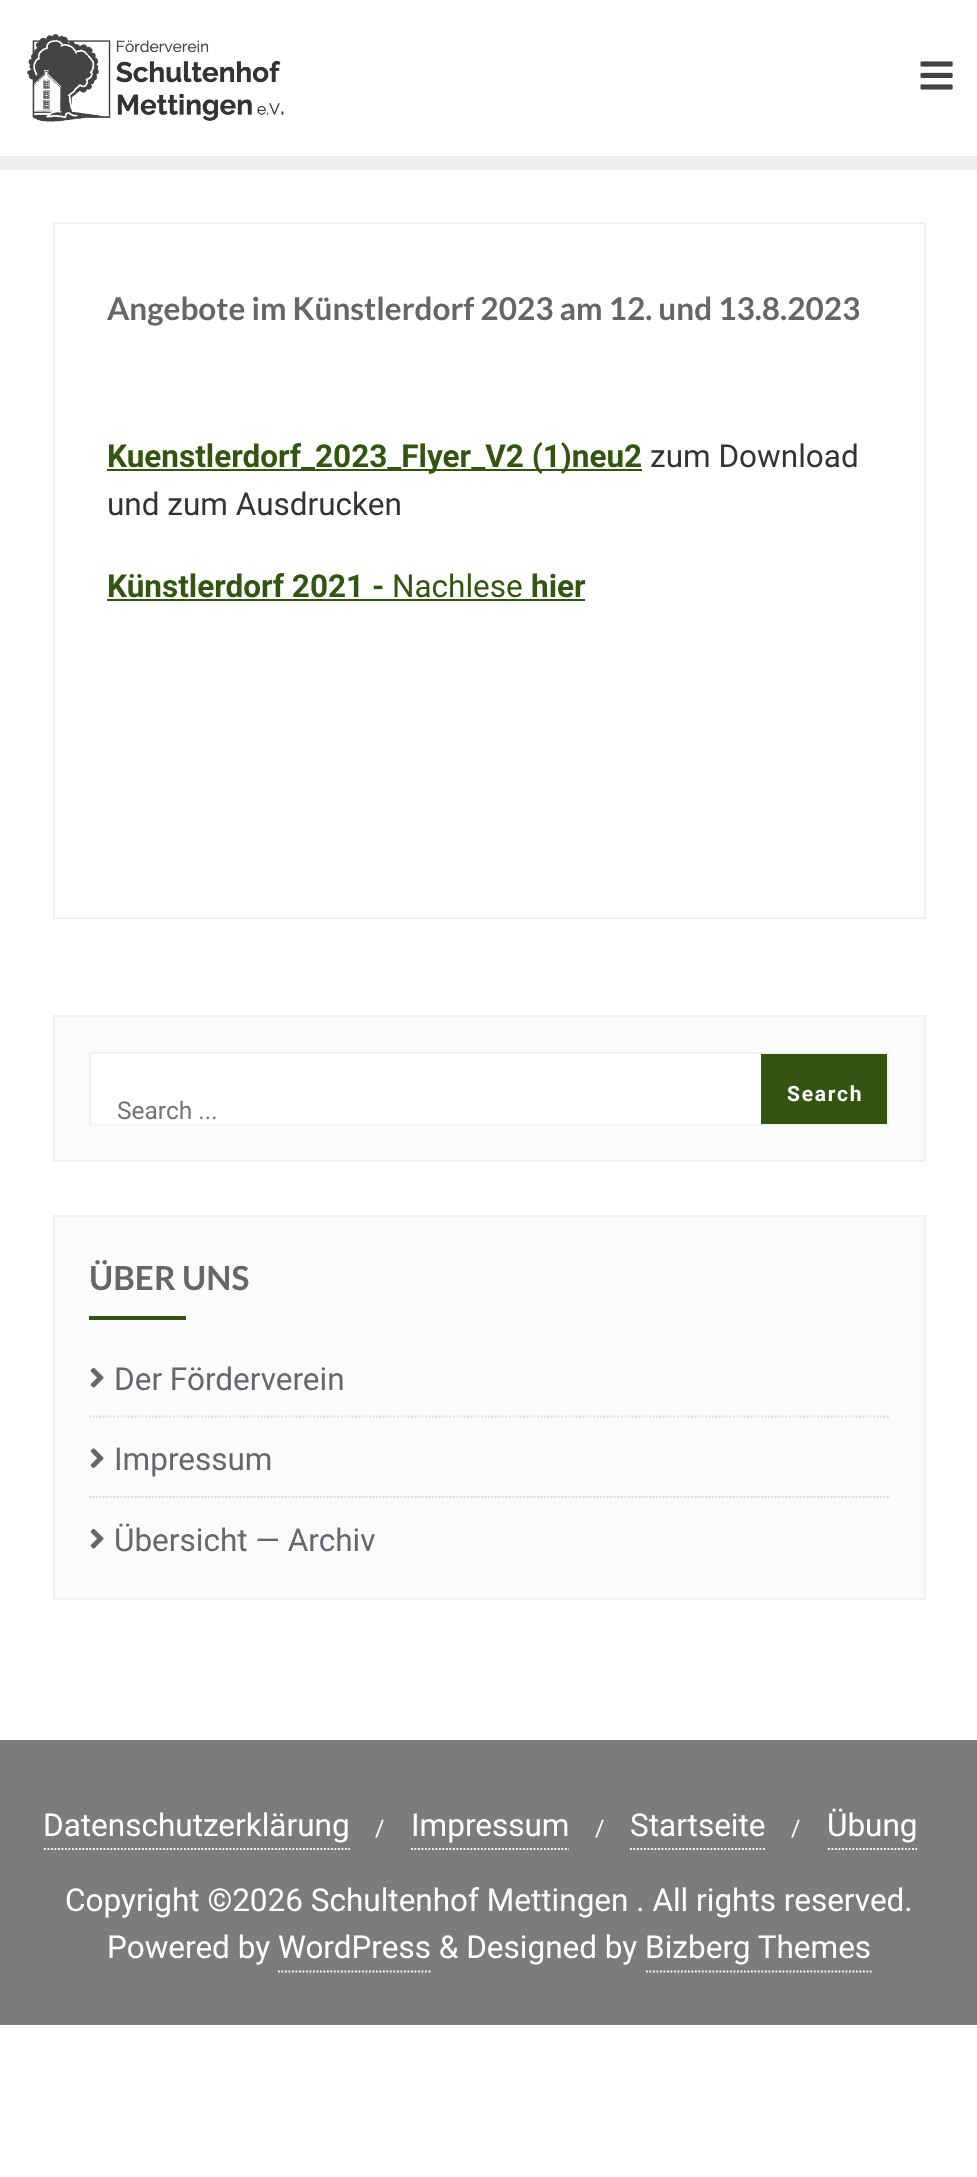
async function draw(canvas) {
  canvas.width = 977;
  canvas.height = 2177;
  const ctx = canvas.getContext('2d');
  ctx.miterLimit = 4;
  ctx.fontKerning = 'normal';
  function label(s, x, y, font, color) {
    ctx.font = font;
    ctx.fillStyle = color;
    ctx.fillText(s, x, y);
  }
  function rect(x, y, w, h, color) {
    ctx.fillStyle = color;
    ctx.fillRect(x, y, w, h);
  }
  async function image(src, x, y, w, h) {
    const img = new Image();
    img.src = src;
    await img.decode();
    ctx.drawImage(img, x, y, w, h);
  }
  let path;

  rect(0, 0, 977, 2177, '#fff');
  rect(0, 156, 977, 14, '#eee');
  await image('assets/img1.png', 27, 34, 257, 88);
  await image('assets/img2.png', 920, 61, 33, 29);
  ctx.strokeStyle = '#f1f1f1';
  ctx.lineWidth = 2;
  ctx.strokeRect(54, 223, 871, 695);
  label('Angebote im Künstlerdorf 2023 am 12. und 13.8.2023', 107, 320, 'bold 31.5px Lato', '#666');
  rect(107, 469, 535, 2, '#351');
  label('Kuenstlerdorf_2023_Flyer_V2 (1)neu2', 107, 467, 'bold 31.5px Roboto', '#351');
  label('zum Download', 650, 467, '31.5px Roboto', '#333');
  label('und zum Ausdrucken', 107, 515, '31.5px Roboto', '#333');
  label('Künstlerdorf 2021 -', 107, 597, 'bold 31.5px Roboto', '#351');
  rect(107, 599, 478, 2, '#351');
  label('Nachlese', 392, 597, '31.5px Roboto', '#351');
  label('hier', 531, 597, 'bold 31.5px Roboto', '#351');
  ctx.fillStyle = '#fbfbfb';
  ctx.beginPath();
  ctx.rect(54, 1016, 871, 145);
  ctx.fill();
  ctx.stroke();
  rect(91, 1054, 670, 17, '#fff');
  ctx.strokeRect(90, 1053, 798, 71);
  rect(761, 1054, 126, 70, '#351');
  ctx.letterSpacing = '1.75px';
  label('Search', 787, 1101, 'bold 21px Roboto', '#fff');
  rect(91, 1071, 670, 53, '#fff');
  ctx.letterSpacing = '0px';
  label('Search ...', 117, 1119, '24.5px Roboto', '#757575');
  ctx.fillStyle = '#fbfbfb';
  ctx.beginPath();
  ctx.rect(54, 1216, 871, 383);
  ctx.fill();
  ctx.stroke();
  label('ÜBER UNS', 89, 1290, 'bold 33.25px Lato', '#666');
  rect(89, 1316, 97, 4, '#351');
  path = new Path2D('M89 1416.5H889');
  ctx.strokeStyle = '#dbdbdb';
  ctx.lineWidth = 1.8;
  ctx.setLineDash([1.75, 1.75]);
  ctx.stroke(path);
  await image('assets/img3.png', 90, 1367, 14, 21);
  label('Der Förderverein', 114, 1390, '31.5px Roboto', '#64686d');
  path = new Path2D('M89 1497H889');
  ctx.stroke(path);
  await image('assets/img4.png', 90, 1448, 14, 20);
  label('Impressum', 114, 1470, '31.5px Roboto', '#64686d');
  await image('assets/img3.png', 90, 1528, 14, 21);
  label('Übersicht — Archiv', 114, 1551, '31.5px Roboto', '#64686d');
  rect(0, 1740, 977, 285, '#7c7c7c');
  path = new Path2D('M44 1849H350');
  ctx.strokeStyle = '#fff';
  ctx.stroke(path);
  label('Datenschutzerklärung', 43, 1836, '31.5px Roboto', '#fff');
  label('/', 375, 1836, '23px Roboto', '#fff');
  path = new Path2D('M411 1849H569');
  ctx.stroke(path);
  label('Impressum', 411, 1836, '31.5px Roboto', '#fff');
  label('/', 595, 1836, '23px Roboto', '#fff');
  path = new Path2D('M630 1849H766.5');
  ctx.stroke(path);
  label('Startseite', 630, 1836, '31.5px Roboto', '#fff');
  label('/', 791, 1836, '23px Roboto', '#fff');
  path = new Path2D('M828 1849H917');
  ctx.stroke(path);
  label('Übung', 827, 1836, '31.5px Roboto', '#fff');
  label('Copyright ©2026 Schultenhof Mettingen . All rights reserved.', 65, 1911, '31.5px Roboto', '#fff');
  label('Powered by WordPress & Designed by Bizberg Themes', 107, 1958, '31.5px Roboto', '#fff');
  path = new Path2D('M278 1971.5H430.5');
  ctx.stroke(path);
  path = new Path2D('M646 1971.5H871.5');
  ctx.stroke(path);
}

draw(document.querySelector('canvas'));
